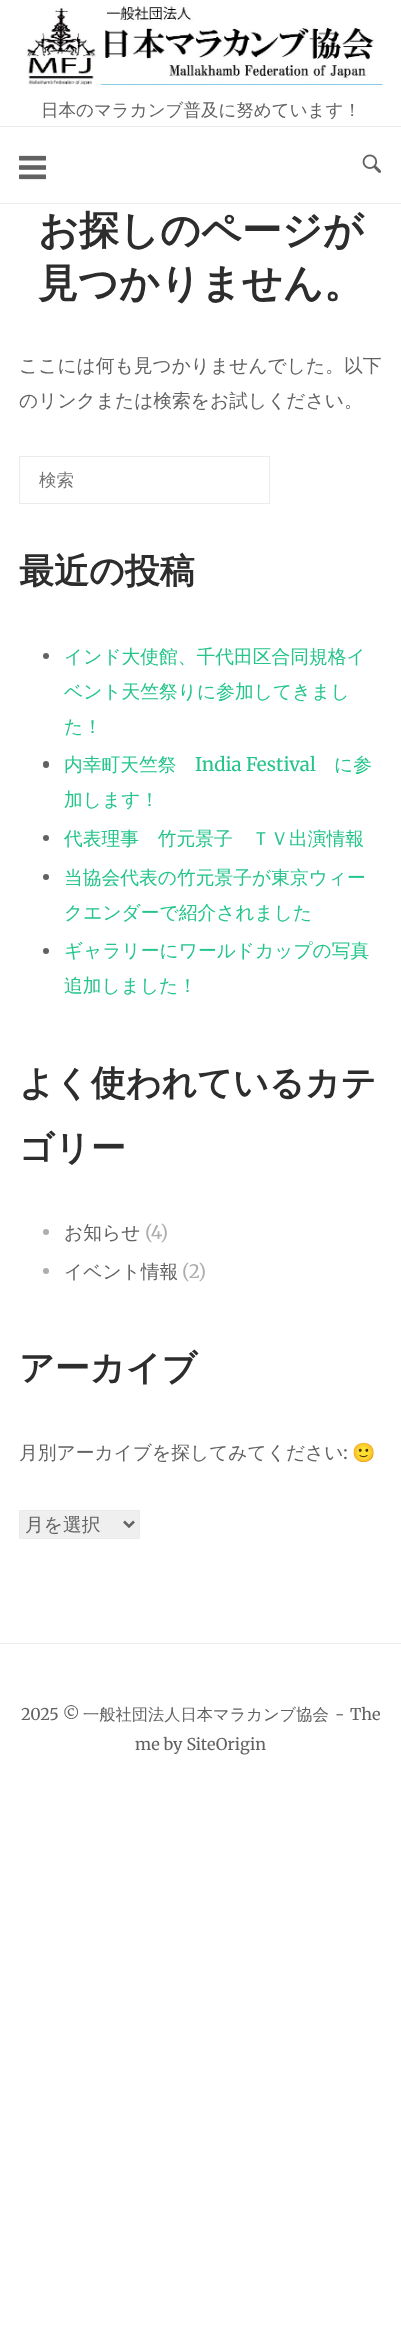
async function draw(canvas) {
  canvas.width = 401;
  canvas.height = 2333;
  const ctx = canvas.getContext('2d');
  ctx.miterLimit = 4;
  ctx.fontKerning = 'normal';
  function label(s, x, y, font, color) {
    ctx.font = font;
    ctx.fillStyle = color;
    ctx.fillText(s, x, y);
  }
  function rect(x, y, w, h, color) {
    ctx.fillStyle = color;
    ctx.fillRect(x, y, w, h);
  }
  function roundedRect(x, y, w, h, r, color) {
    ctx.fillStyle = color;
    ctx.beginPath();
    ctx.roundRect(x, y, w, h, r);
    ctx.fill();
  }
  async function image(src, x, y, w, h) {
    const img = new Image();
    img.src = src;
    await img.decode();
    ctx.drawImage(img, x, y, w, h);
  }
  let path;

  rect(0, 0, 401, 2333, '#fff');
  await image('assets/img1.png', 26, 5, 357, 80);
  label('日本のマラカンブ普及に努めています！', 41, 116, '500 17.5px WenQuanYi Zen Hei', '#626262');
  rect(0, 126, 401, 1, '#ebebeb');
  rect(0, 203, 401, 1, '#ebebeb');
  await image('assets/img2.png', 19, 155, 27, 25);
  await image('assets/img3.png', 362, 154, 20, 19);
  label('お探しのページが', 38, 244, 'bold 40px WenQuanYi Zen Hei', '#2d2d2d');
  label('見つかりません。', 38, 297, 'bold 40px WenQuanYi Zen Hei', '#2d2d2d');
  label('ここには何も見つかりませんでした。以下', 19, 372, '500 18.75px WenQuanYi Zen Hei', '#626262');
  label('のリンクまたは検索をお試しください。', 19, 407, '500 18.75px WenQuanYi Zen Hei', '#626262');
  ctx.strokeStyle = '#ebebeb';
  ctx.strokeRect(19.5, 456.5, 250, 47);
  label('検索', 39, 486, '500 17.5px WenQuanYi Zen Hei', '#757575');
  label('最近の投稿', 19, 583, 'bold 35px WenQuanYi Zen Hei', '#2d2d2d');
  ctx.fillStyle = '#626262';
  ctx.beginPath();
  ctx.arc(46, 656, 3, 0, 2 * Math.PI);
  ctx.fill();
  label('インド大使館、千代田区合同規格イ', 64, 663, '500 18.75px WenQuanYi Zen Hei', '#24c48a');
  label('ベント天竺祭りに参加してきまし', 64, 698, '500 18.75px WenQuanYi Zen Hei', '#24c48a');
  label('た！', 64, 733, '500 18.75px WenQuanYi Zen Hei', '#24c48a');
  roundedRect(43, 761, 6, 7, 3, '#626262');
  label('内幸町天竺祭', 64, 771, '500 18.75px WenQuanYi Zen Hei', '#24c48a');
  label('India Festival', 195, 771, '18.75px Merriweather', '#24c48a');
  label('に参', 334, 771, '500 18.75px WenQuanYi Zen Hei', '#24c48a');
  label('加します！', 64, 806, '500 18.75px WenQuanYi Zen Hei', '#24c48a');
  ctx.fillStyle = '#626262';
  ctx.beginPath();
  ctx.arc(46, 838, 3, 0, 2 * Math.PI);
  ctx.fill();
  label('代表理事　竹元景子　ＴＶ出演情報', 64, 845, '500 18.75px WenQuanYi Zen Hei', '#24c48a');
  ctx.fillStyle = '#626262';
  ctx.beginPath();
  ctx.arc(46, 877, 3, 0, 2 * Math.PI);
  ctx.fill();
  label('当協会代表の竹元景子が東京ウィー', 64, 884, '500 18.75px WenQuanYi Zen Hei', '#24c48a');
  label('クエンダーで紹介されました', 64, 919, '500 18.75px WenQuanYi Zen Hei', '#24c48a');
  ctx.fillStyle = '#626262';
  ctx.beginPath();
  ctx.arc(46, 951, 3, 0, 2 * Math.PI);
  ctx.fill();
  label('ギャラリーにワールドカップの写真', 64, 957, '500 18.75px WenQuanYi Zen Hei', '#24c48a');
  label('追加しました！', 64, 992, '500 18.75px WenQuanYi Zen Hei', '#24c48a');
  label('よく使われているカテ', 19, 1095, 'bold 35px WenQuanYi Zen Hei', '#2d2d2d');
  label('ゴリー', 19, 1160, 'bold 35px WenQuanYi Zen Hei', '#2d2d2d');
  ctx.fillStyle = '#adadad';
  ctx.beginPath();
  ctx.arc(46, 1232, 3, 0, 2 * Math.PI);
  ctx.fill();
  label('お知らせ', 64, 1239, '500 18.75px WenQuanYi Zen Hei', '#626262');
  label('(4)', 145, 1239, '18.75px Merriweather', '#adadad');
  ctx.beginPath();
  ctx.arc(46, 1271, 3, 0, 2 * Math.PI);
  ctx.fill();
  label('イベント情報', 64, 1278, '500 18.75px WenQuanYi Zen Hei', '#626262');
  label('(2)', 182, 1278, '18.75px Merriweather', '#adadad');
  label('アーカイブ', 19, 1380, 'bold 35px WenQuanYi Zen Hei', '#2d2d2d');
  label('月別アーカイブを探してみてください', 19, 1459, '500 18.75px WenQuanYi Zen Hei', '#626262');
  label(':', 343, 1459, '18.75px Merriweather', '#626262');
  label('🙂', 352, 1459, '18.75px Noto Color Emoji', '#626262');
  ctx.fillStyle = '#efefef';
  ctx.beginPath();
  ctx.rect(19.5, 1510.5, 120, 28);
  ctx.fill();
  ctx.stroke();
  path = new Path2D('M124 1521.5L129 1526.5L134 1521.5');
  ctx.strokeStyle = '#626262';
  ctx.lineWidth = 2.5;
  ctx.stroke(path);
  label('月を選択', 25, 1531, '500 18.75px WenQuanYi Zen Hei', '#626262');
  rect(0, 1643, 401, 1, '#ebebeb');
  label('2025 ©', 21, 1720, '16.25px Merriweather', '#626262');
  label('一般社団法人日本マラカンブ協会', 83, 1720, '500 16.25px WenQuanYi Zen Hei', '#626262');
  label('-', 335, 1720, '16.25px Merriweather', '#626262');
  label('The', 350, 1720, '16.25px Merriweather', '#626262');
  label('me by SiteOrigin', 135, 1750, '16.25px Merriweather', '#626262');
}

draw(document.querySelector('canvas'));
